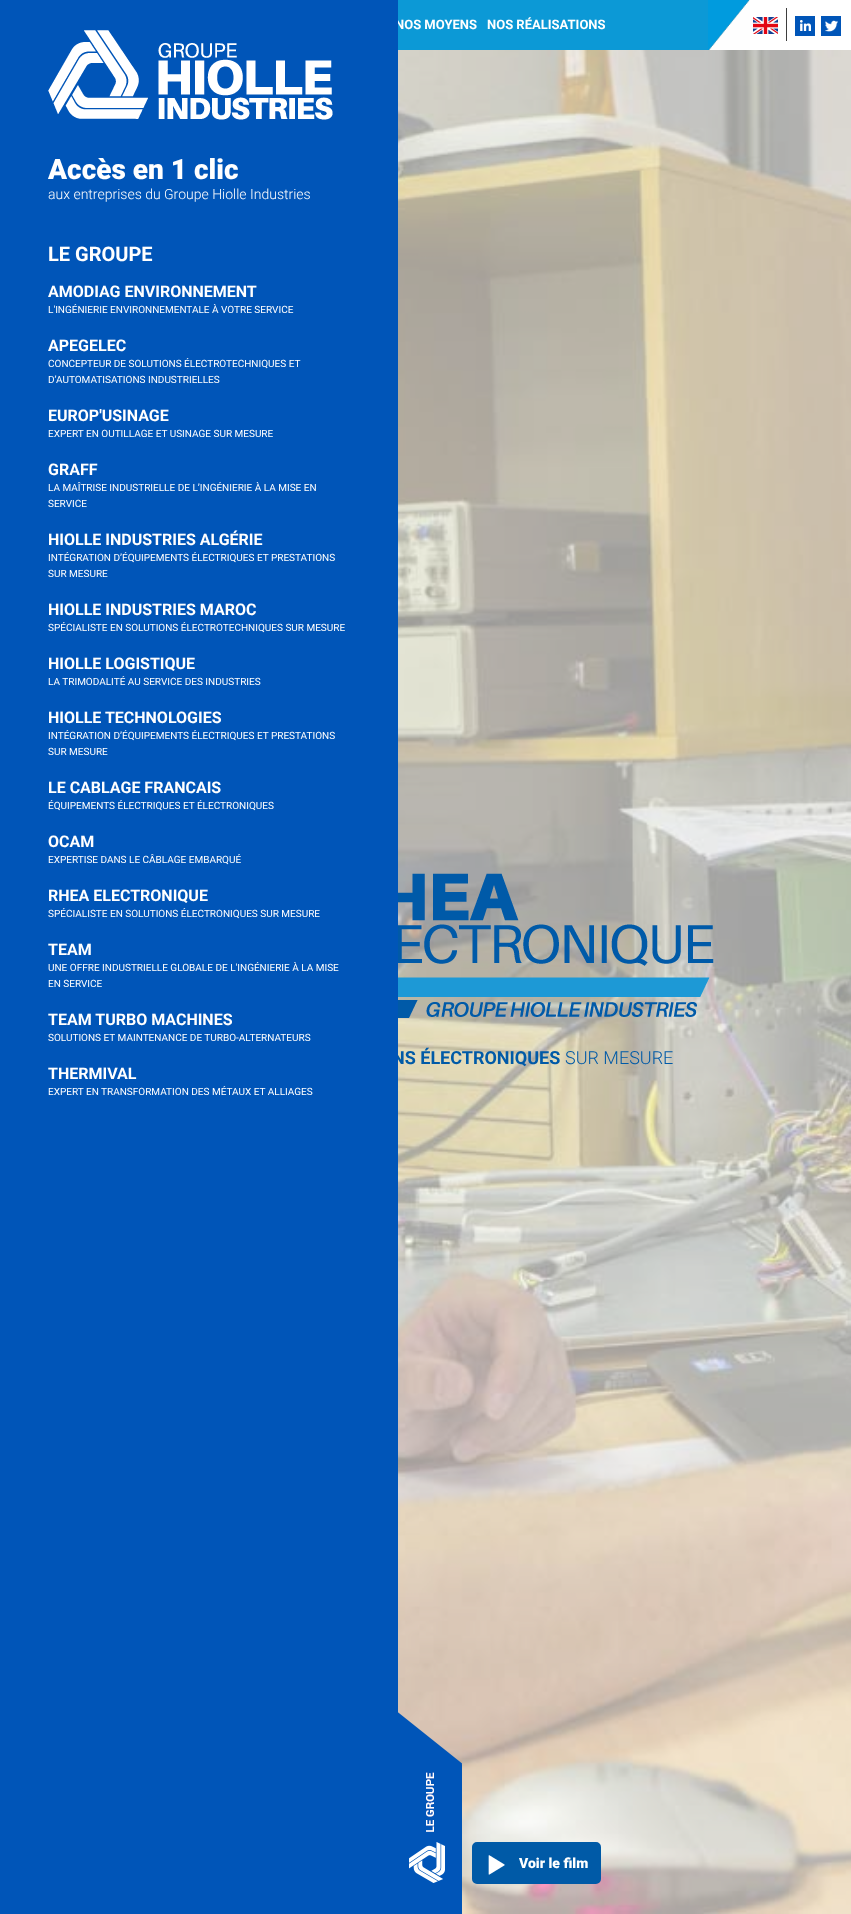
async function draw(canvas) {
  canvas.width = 851;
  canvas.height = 1914;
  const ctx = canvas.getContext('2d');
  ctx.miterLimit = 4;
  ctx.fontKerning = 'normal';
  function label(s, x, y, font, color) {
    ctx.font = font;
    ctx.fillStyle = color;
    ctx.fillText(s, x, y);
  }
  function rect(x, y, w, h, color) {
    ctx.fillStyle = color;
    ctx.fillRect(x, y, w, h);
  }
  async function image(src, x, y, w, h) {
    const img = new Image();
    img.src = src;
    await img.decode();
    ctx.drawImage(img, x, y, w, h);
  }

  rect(0, 0, 851, 1914, '#fff');
  rect(398, 0, 310, 50, '#0c99d6');
  label('NOS MOYENS', 395, 29, 'bold 13px Roboto', '#fff');
  label('NOS RÉALISATIONS', 487, 29, 'bold 13px Roboto', '#fff');
  await image('assets/img1.png', 708, 0, 42, 50);
  await image('assets/img2.png', 753, 17, 25, 17);
  rect(786, 8, 1, 33, '#3e3e3e');
  await image('assets/img3.png', 795, 16, 20, 20);
  await image('assets/img4.png', 821, 16, 20, 20);
  await image('assets/img7.png', 398, 50, 453, 1864);
  label('NS ÉLECTRONIQUES', 392, 1064, 'bold 18px Roboto', '#005aa7');
  rect(0, 0, 398, 1914, '#0055b8');
  await image('assets/img5.png', 48, 30, 285, 90);
  label('Accès en 1 clic', 48, 179, '900 28px Roboto', '#fff');
  label('aux entreprises du Groupe Hiolle Industries', 48, 199, '300 14px Roboto', '#fff');
  label('LE GROUPE', 48, 261, 'bold 20px Roboto', '#fff');
  label('AMODIAG ENVIRONNEMENT', 48, 297, 'bold 16px Roboto', '#fff');
  label('L\'INGÉNIERIE ENVIRONNEMENTALE À VOTRE SERVICE', 48, 313, '10px Roboto', '#fff');
  label('APEGELEC', 48, 351, 'bold 16px Roboto', '#fff');
  label('CONCEPTEUR DE SOLUTIONS ÉLECTROTECHNIQUES ET', 48, 367, '10px Roboto', '#fff');
  label('D’AUTOMATISATIONS INDUSTRIELLES', 48, 383, '10px Roboto', '#fff');
  label('EUROP\'USINAGE', 48, 421, 'bold 16px Roboto', '#fff');
  label('EXPERT EN OUTILLAGE ET USINAGE SUR MESURE', 48, 437, '10px Roboto', '#fff');
  label('GRAFF', 48, 475, 'bold 16px Roboto', '#fff');
  label('LA MAÎTRISE INDUSTRIELLE DE L’INGÉNIERIE À LA MISE EN', 48, 491, '10px Roboto', '#fff');
  label('SERVICE', 48, 507, '10px Roboto', '#fff');
  label('HIOLLE INDUSTRIES ALGÉRIE', 48, 545, 'bold 16px Roboto', '#fff');
  label('INTÉGRATION D’ÉQUIPEMENTS ÉLECTRIQUES ET PRESTATIONS', 48, 561, '10px Roboto', '#fff');
  label('SUR MESURE', 48, 577, '10px Roboto', '#fff');
  label('HIOLLE INDUSTRIES MAROC', 48, 615, 'bold 16px Roboto', '#fff');
  label('SPÉCIALISTE EN SOLUTIONS ÉLECTROTECHNIQUES SUR MESURE', 48, 631, '10px Roboto', '#fff');
  label('HIOLLE LOGISTIQUE', 48, 669, 'bold 16px Roboto', '#fff');
  label('LA TRIMODALITÉ AU SERVICE DES INDUSTRIES', 48, 685, '10px Roboto', '#fff');
  label('HIOLLE TECHNOLOGIES', 48, 723, 'bold 16px Roboto', '#fff');
  label('INTÉGRATION D’ÉQUIPEMENTS ÉLECTRIQUES ET PRESTATIONS', 48, 739, '10px Roboto', '#fff');
  label('SUR MESURE', 48, 755, '10px Roboto', '#fff');
  label('LE CABLAGE FRANCAIS', 48, 793, 'bold 16px Roboto', '#fff');
  label('ÉQUIPEMENTS ÉLECTRIQUES ET ÉLECTRONIQUES', 48, 809, '10px Roboto', '#fff');
  label('OCAM', 48, 847, 'bold 16px Roboto', '#fff');
  label('EXPERTISE DANS LE CÂBLAGE EMBARQUÉ', 48, 863, '10px Roboto', '#fff');
  label('RHEA ELECTRONIQUE', 48, 901, 'bold 16px Roboto', '#fff');
  label('SPÉCIALISTE EN SOLUTIONS ÉLECTRONIQUES SUR MESURE', 48, 917, '10px Roboto', '#fff');
  label('TEAM', 48, 955, 'bold 16px Roboto', '#fff');
  label('UNE OFFRE INDUSTRIELLE GLOBALE DE L\'INGÉNIERIE À LA MISE', 48, 971, '10px Roboto', '#fff');
  label('EN SERVICE', 48, 987, '10px Roboto', '#fff');
  label('TEAM TURBO MACHINES', 48, 1025, 'bold 16px Roboto', '#fff');
  label('SOLUTIONS ET MAINTENANCE DE TURBO-ALTERNATEURS', 48, 1041, '10px Roboto', '#fff');
  label('THERMIVAL', 48, 1079, 'bold 16px Roboto', '#fff');
  label('EXPERT EN TRANSFORMATION DES MÉTAUX ET ALLIAGES', 48, 1095, '10px Roboto', '#fff');
  await image('assets/img6.png', 398, 1712, 64, 202);
  await image('assets/img8.png', 398, 873, 316, 145);
  label('SUR MESURE', 565, 1064, '300 18px Roboto', '#005aa7');
  ctx.beginPath();
  ctx.roundRect(473.5, 1843.5, 126, 39, 3.5);
  ctx.fill();
  ctx.strokeStyle = '#005aa7';
  ctx.lineWidth = 3;
  ctx.stroke();
  await image('assets/img9.png', 488, 1855, 17, 20);
  label('Voir le film', 519, 1868, '900 14px Roboto', '#fff');
}

draw(document.querySelector('canvas'));
